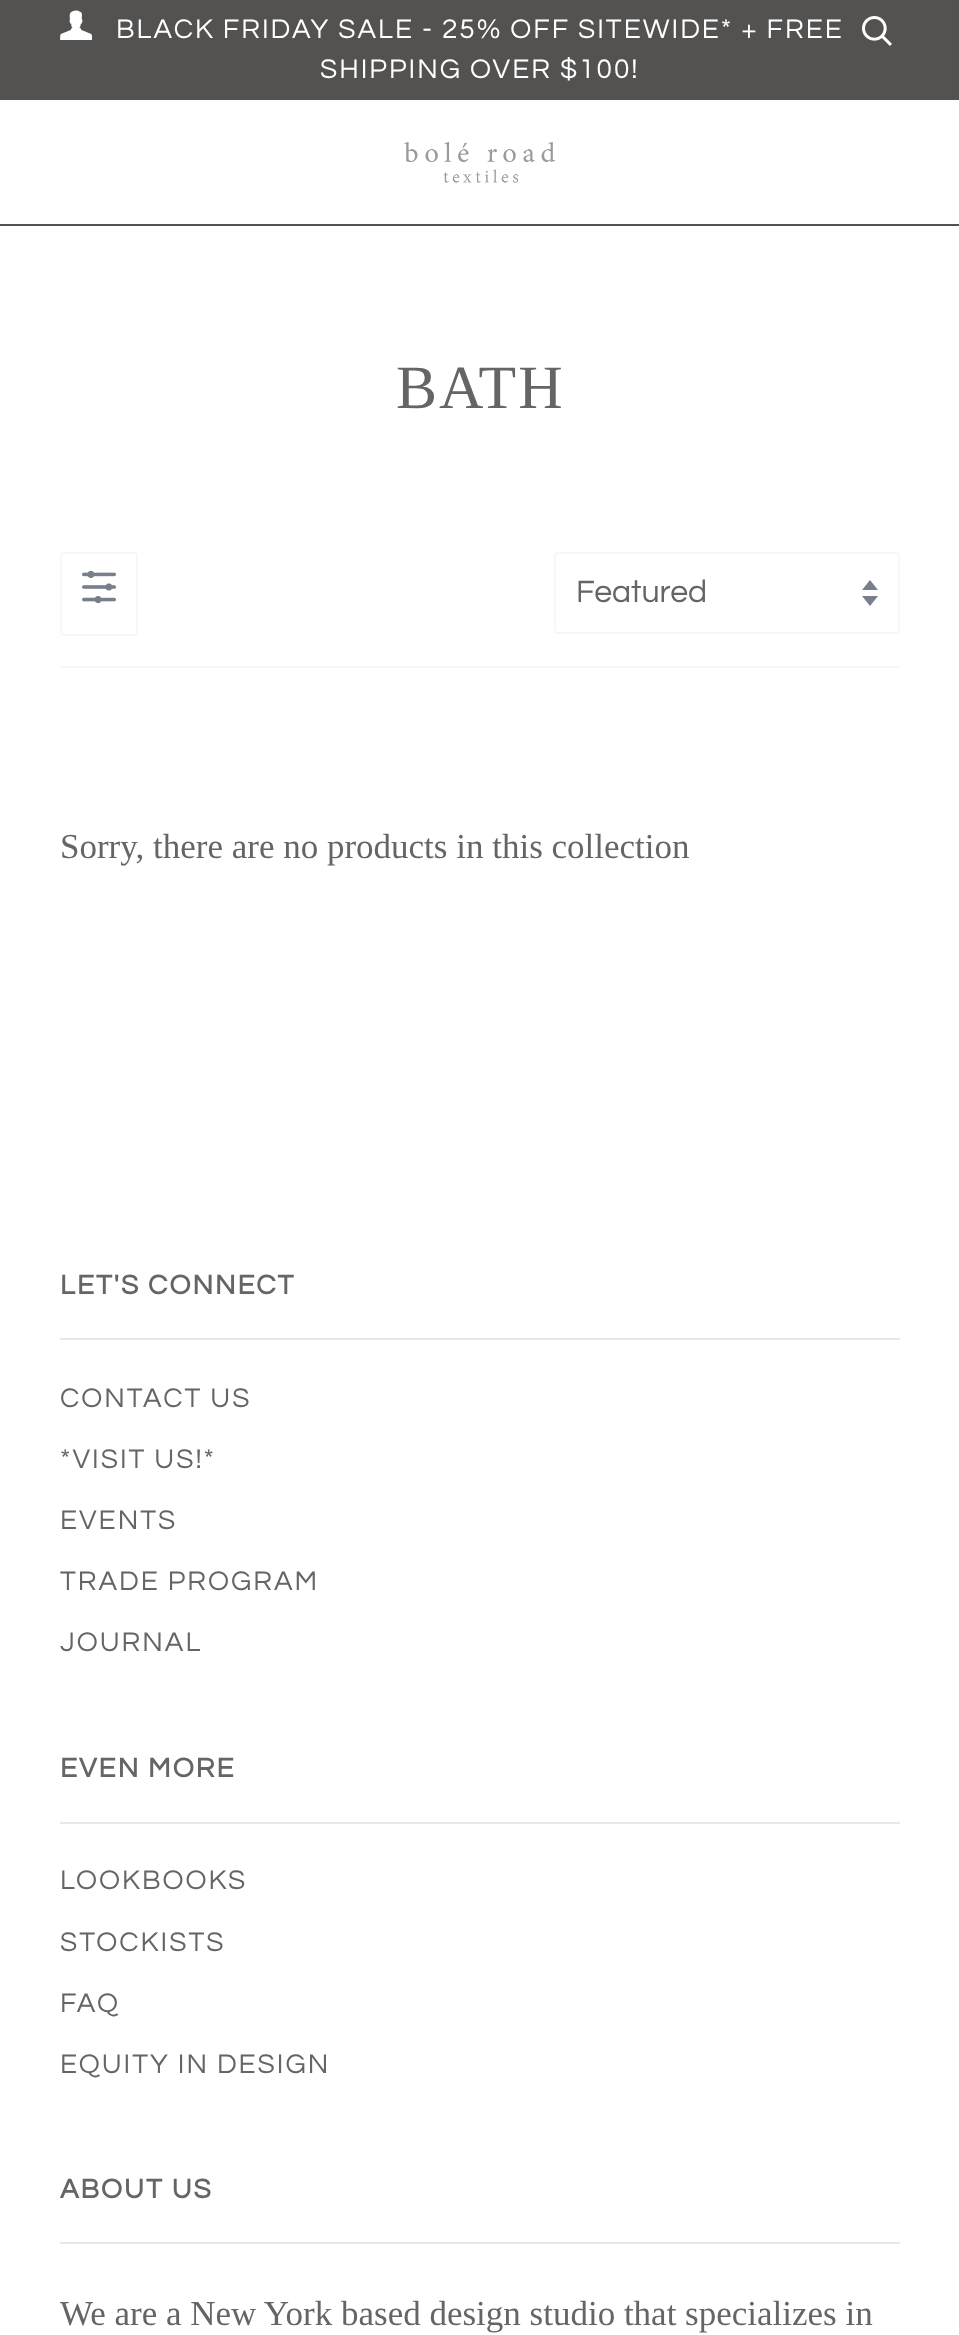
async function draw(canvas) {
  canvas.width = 959;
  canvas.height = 2335;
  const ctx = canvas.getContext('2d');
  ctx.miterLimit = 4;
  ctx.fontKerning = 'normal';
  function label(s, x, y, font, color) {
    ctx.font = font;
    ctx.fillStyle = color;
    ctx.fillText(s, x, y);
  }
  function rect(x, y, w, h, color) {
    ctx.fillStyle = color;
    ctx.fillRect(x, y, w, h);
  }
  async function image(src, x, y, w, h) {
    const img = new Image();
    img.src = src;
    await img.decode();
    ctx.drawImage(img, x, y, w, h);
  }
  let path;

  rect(0, 0, 959, 2335, '#fff');
  rect(0, 0, 959, 100, '#535251');
  await image('assets/img1.png', 60, 10, 32, 30);
  ctx.letterSpacing = '2px';
  label('BLACK FRIDAY SALE - 25% OFF SITEWIDE* + FREE', 116, 38, '28px Questrial', '#fff');
  label('SHIPPING OVER $100!', 320, 78, '28px Questrial', '#fff');
  await image('assets/img2.png', 862, 16, 30, 30);
  rect(0, 224, 959, 2, '#535251');
  await image('assets/img3.png', 404, 142, 151, 41);
  label('BATH', 396, 408, '61.5px Liberation Serif', '#656565');
  ctx.beginPath();
  ctx.roundRect(61, 553, 76, 82, 3);
  ctx.strokeStyle = '#f7f7f7';
  ctx.lineWidth = 2;
  ctx.stroke();
  await image('assets/img4.png', 82, 570, 34, 34);
  ctx.fillStyle = '#797e8d';
  path = new Path2D('M862 596L870 606L878 596ZM870 580L862 590H878Z');
  ctx.fill(path);
  ctx.beginPath();
  ctx.roundRect(555, 553, 344, 80, 3);
  ctx.stroke();
  ctx.letterSpacing = '0px';
  label('Featured', 576, 602, '32px Questrial', '#656565');
  rect(60, 666, 840, 2, '#f7f7f7');
  label('Sorry, there are no products in this collection', 60, 858, '35px Liberation Serif', '#656565');
  ctx.letterSpacing = '2px';
  label('LET\'S CONNECT', 60, 1294, 'bold 28px Questrial', '#656565');
  rect(60, 1338, 840, 2, '#e8e8e8');
  label('CONTACT US', 60, 1407, '28px Questrial', '#656565');
  label('*VISIT US!*', 60, 1468, '28px Questrial', '#656565');
  label('EVENTS', 60, 1529, '28px Questrial', '#656565');
  label('TRADE PROGRAM', 60, 1590, '28px Questrial', '#656565');
  label('JOURNAL', 60, 1651, '28px Questrial', '#656565');
  label('EVEN MORE', 60, 1777, 'bold 28px Questrial', '#656565');
  rect(60, 1822, 840, 2, '#e8e8e8');
  label('LOOKBOOKS', 60, 1889, '28px Questrial', '#656565');
  label('STOCKISTS', 60, 1951, '28px Questrial', '#656565');
  label('FAQ', 60, 2012, '28px Questrial', '#656565');
  label('EQUITY IN DESIGN', 60, 2073, '28px Questrial', '#656565');
  label('ABOUT US', 60, 2198, 'bold 28px Questrial', '#656565');
  rect(60, 2242, 840, 2, '#e8e8e8');
  ctx.letterSpacing = '0px';
  label('We are a New York based design studio that specializes in', 60, 2325, '35px Liberation Serif', '#656565');
}

draw(document.querySelector('canvas'));
